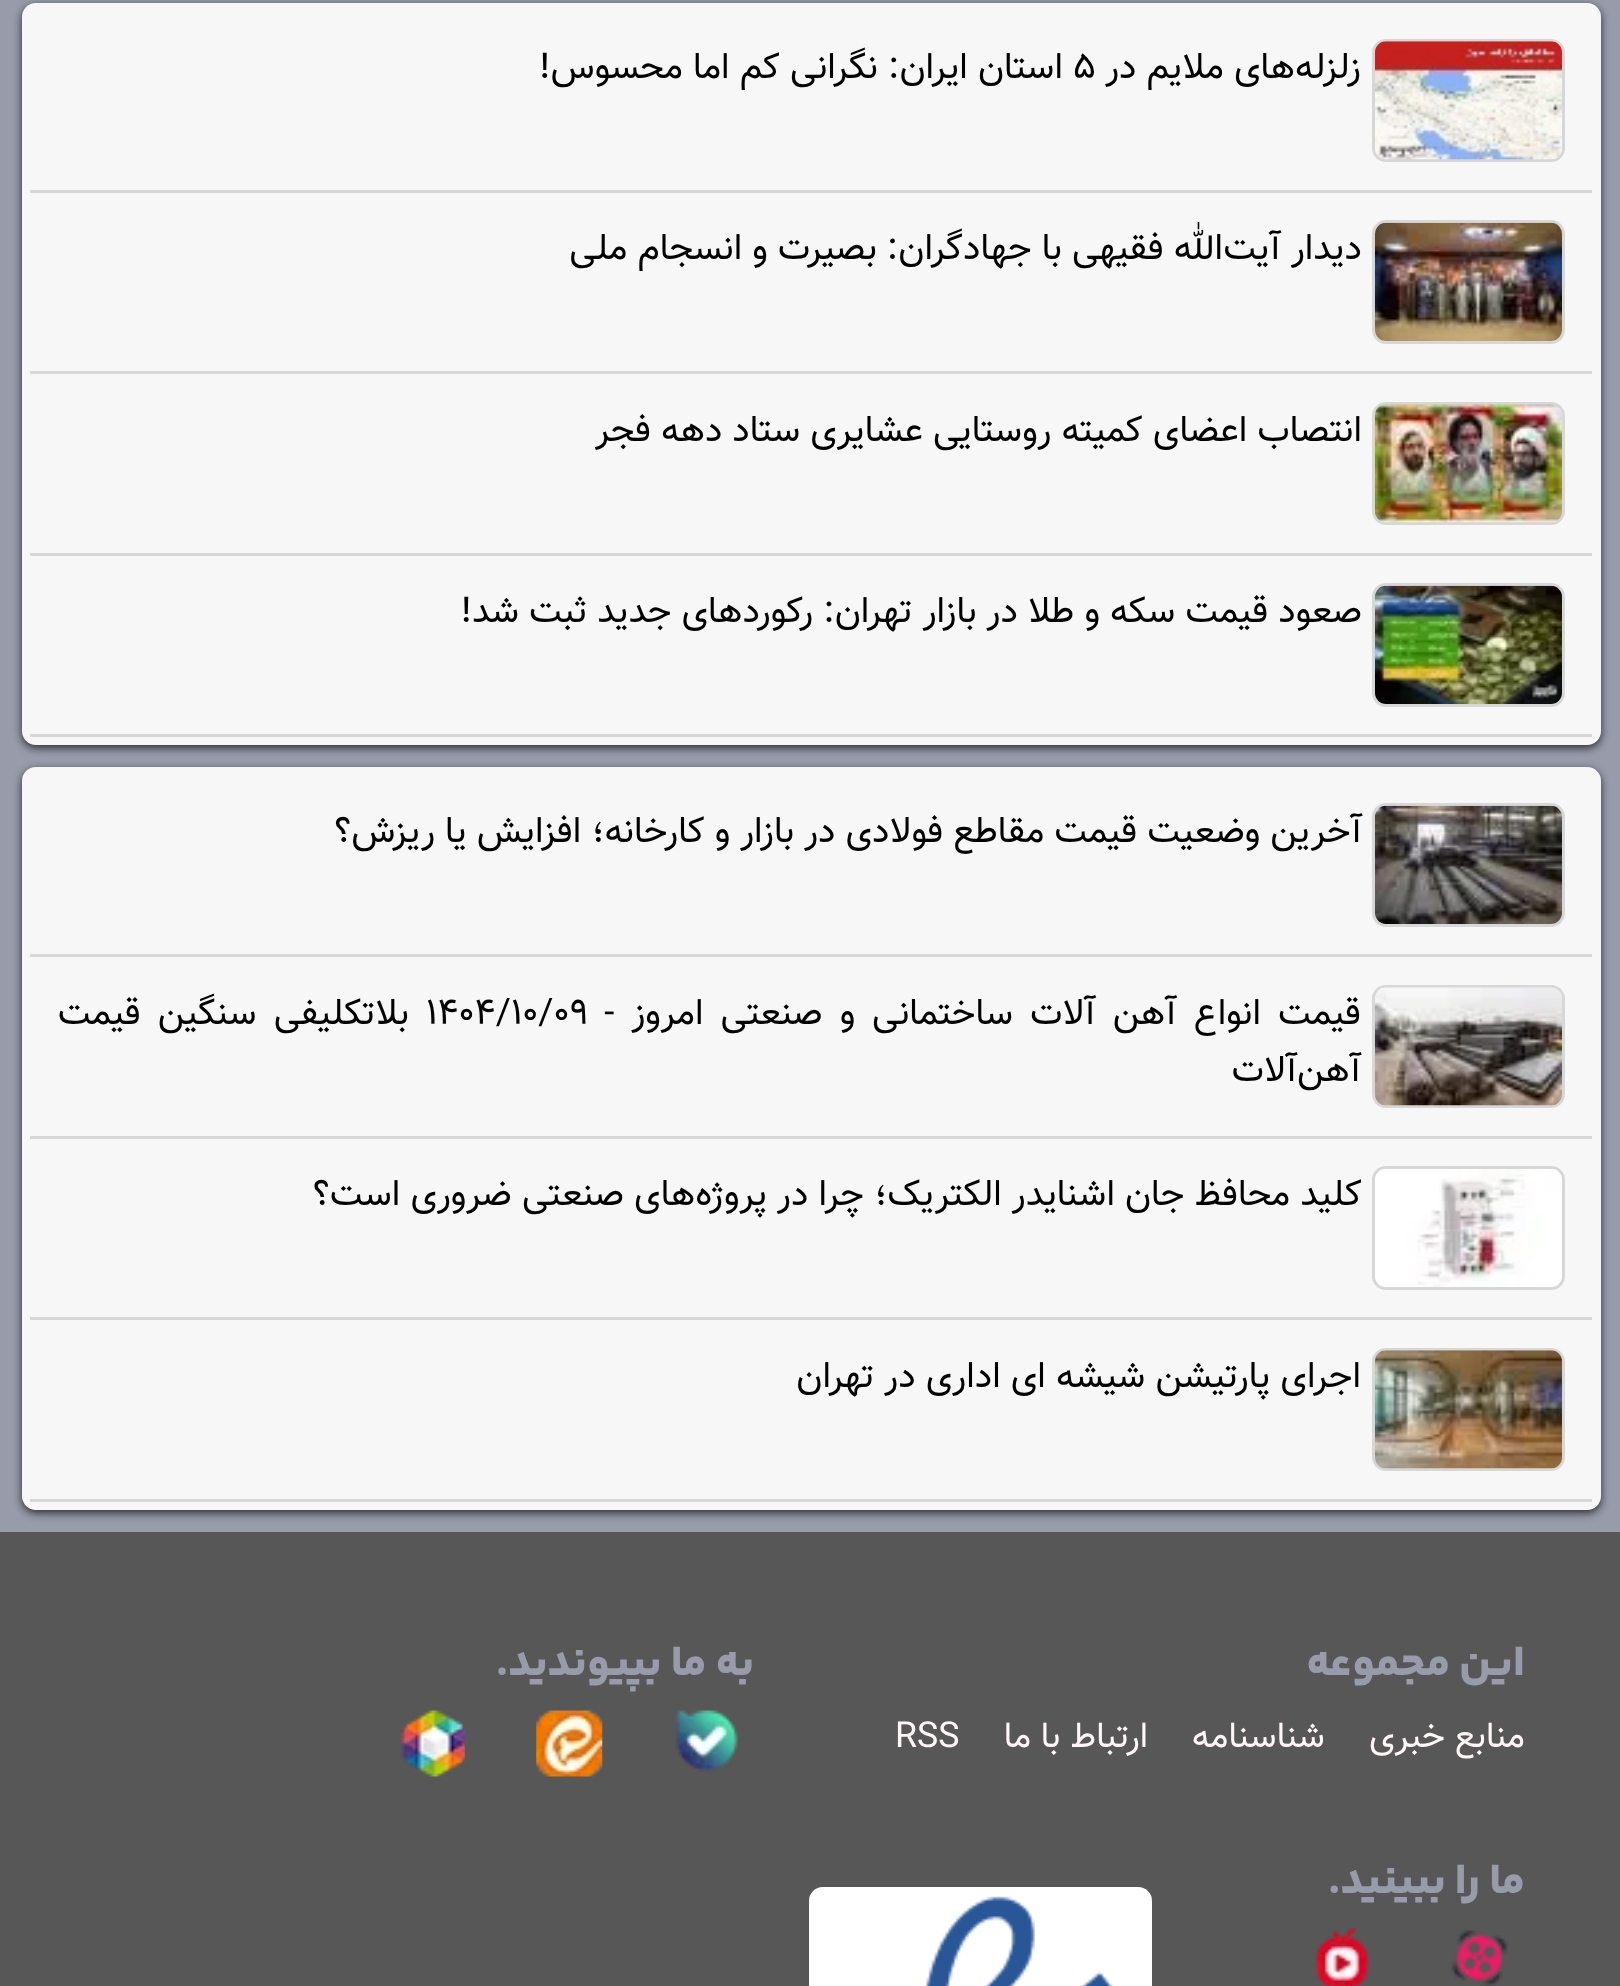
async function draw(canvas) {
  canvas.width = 1620;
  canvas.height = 1986;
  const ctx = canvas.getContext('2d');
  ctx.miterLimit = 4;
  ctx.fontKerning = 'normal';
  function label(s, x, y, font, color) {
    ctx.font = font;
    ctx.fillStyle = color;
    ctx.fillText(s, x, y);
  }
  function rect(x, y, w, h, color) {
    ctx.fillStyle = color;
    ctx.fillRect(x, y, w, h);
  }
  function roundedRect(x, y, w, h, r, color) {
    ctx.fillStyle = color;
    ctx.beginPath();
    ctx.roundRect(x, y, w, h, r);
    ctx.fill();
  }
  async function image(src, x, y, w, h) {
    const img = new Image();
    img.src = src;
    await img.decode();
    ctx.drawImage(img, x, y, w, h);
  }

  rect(0, 0, 1620, 1986, '#979baa');
  ctx.fillStyle = '#202124e6';
  ctx.filter = 'blur(4px)';
  ctx.beginPath();
  ctx.roundRect(22, 6, 1579, 742, 14);
  ctx.fill();
  ctx.filter = 'none';
  roundedRect(22, 3, 1579, 742, 14, '#f7f7f7');
  rect(30, 190, 1562, 3, '#d7d7d7');
  ctx.beginPath();
  ctx.roundRect(1373.5, 40.5, 190, 120, 12.5);
  ctx.strokeStyle = '#d7d7d7';
  ctx.lineWidth = 3;
  ctx.stroke();
  await image('assets/img1.png', 1375, 41, 187, 119);
  ctx.direction = 'rtl';
  label('زلزله‌های ملایم در', 1361, 78, '36.7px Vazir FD', '#000');
  ctx.direction = 'ltr';
  label('5', 1073, 78, '36.7px Vazir FD', '#000');
  ctx.direction = 'rtl';
  label('استان ایران: نگرانی کم اما محسوس!', 1063, 78, '36.7px Vazir FD', '#000');
  rect(30, 371, 1562, 3, '#d7d7d7');
  ctx.beginPath();
  ctx.roundRect(1373.5, 221.5, 190, 121, 12.5);
  ctx.stroke();
  await image('assets/img2.png', 1375, 222, 187, 119);
  label('دیدار آیت‌الله فقیهی با جهادگران: بصیرت و انسجام ملی', 1362, 259, '36.7px Vazir FD', '#000');
  rect(30, 553, 1562, 3, '#d7d7d7');
  ctx.beginPath();
  ctx.roundRect(1373.5, 403.5, 190, 120, 12.5);
  ctx.stroke();
  await image('assets/img3.png', 1375, 404, 187, 119);
  label('انتصاب اعضای کمیته روستایی عشایری ستاد دهه فجر', 1362, 441, '36.7px Vazir FD', '#000');
  rect(30, 734, 1562, 3, '#d7d7d7');
  ctx.beginPath();
  ctx.roundRect(1373.5, 584.5, 190, 121, 12.5);
  ctx.stroke();
  await image('assets/img4.png', 1375, 585, 187, 119);
  label('صعود قیمت سکه و طلا در بازار تهران: رکوردهای جدید ثبت شد!', 1362, 622, '36.7px Vazir FD', '#000');
  ctx.fillStyle = '#202124e6';
  ctx.filter = 'blur(4px)';
  ctx.beginPath();
  ctx.roundRect(22, 770, 1579, 743, 14);
  ctx.fill();
  ctx.filter = 'none';
  roundedRect(22, 767, 1579, 743, 14, '#f7f7f7');
  rect(30, 954, 1562, 3, '#d7d7d7');
  ctx.beginPath();
  ctx.roundRect(1373.5, 804.5, 190, 121, 12.5);
  ctx.stroke();
  await image('assets/img5.png', 1375, 805, 187, 119);
  label('آخرین وضعیت قیمت مقاطع فولادی در بازار و کارخانه؛ افزایش یا ریزش؟', 1362, 842, '36.7px Vazir FD', '#000');
  rect(30, 1136, 1562, 3, '#d7d7d7');
  ctx.beginPath();
  ctx.roundRect(1373.5, 986.5, 190, 120, 12.5);
  ctx.stroke();
  await image('assets/img6.png', 1375, 987, 187, 119);
  ctx.wordSpacing = '7px';
  label('قیمت انواع آهن آلات ساختمانی و صنعتی امروز -', 1361, 1024, '36.7px Vazir FD', '#000');
  ctx.wordSpacing = '0px';
  ctx.direction = 'ltr';
  label('1404/10/09', 426, 1024, '36.7px Vazir FD', '#000');
  ctx.wordSpacing = '7px';
  ctx.direction = 'rtl';
  label('بلاتکلیفی سنگین قیمت', 409, 1024, '36.7px Vazir FD', '#000');
  ctx.wordSpacing = '0px';
  label('آهن‌آلات', 1361, 1081, '36.7px Vazir FD', '#000');
  rect(30, 1317, 1562, 3, '#d7d7d7');
  ctx.beginPath();
  ctx.roundRect(1373.5, 1167.5, 190, 121, 12.5);
  ctx.stroke();
  await image('assets/img7.png', 1375, 1169, 187, 118);
  label('کلید محافظ جان اشنایدر الکتریک؛ چرا در پروژه‌های صنعتی ضروری است؟', 1362, 1205, '36.7px Vazir FD', '#000');
  rect(30, 1499, 1562, 3, '#d7d7d7');
  ctx.beginPath();
  ctx.roundRect(1373.5, 1349.5, 190, 120, 12.5);
  ctx.stroke();
  await image('assets/img8.png', 1375, 1350, 187, 119);
  label('اجرای پارتیشن شیشه ای اداری در تهران', 1361, 1387, '36.7px Vazir FD', '#000');
  rect(0, 1532, 1620, 454, '#575758');
  label('این مجموعه', 1525, 1675, '800 44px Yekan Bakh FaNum', '#979baa');
  label('منابع خبری', 1525, 1747, '35.75px Vazir FD', '#fff7f7');
  label('شناسنامه', 1325, 1747, '35.75px Vazir FD', '#fff7f7');
  label('ارتباط با ما', 1148, 1747, '35.75px Vazir FD', '#fff7f7');
  ctx.direction = 'ltr';
  label('RSS', 895, 1747, '35.75px Vazir FD', '#fff7f7');
  ctx.direction = 'rtl';
  label('به ما بپیوندید.', 754, 1675, '800 44px Yekan Bakh FaNum', '#979baa');
  await image('assets/img9.png', 675, 1710, 63, 62);
  await image('assets/img10.png', 536, 1710, 67, 67);
  await image('assets/img11.png', 400, 1710, 65, 67);
  label('ما را ببینید.', 1525, 1893, '800 44px Yekan Bakh FaNum', '#979baa');
  await image('assets/img12.png', 1451, 1930, 57, 56);
  await image('assets/img13.png', 1314, 1927, 56, 59);
  roundedRect(809, 1887, 343, 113, 14, '#fff');
  await image('assets/img14.png', 926, 1896, 188, 90);
}

draw(document.querySelector('canvas'));
